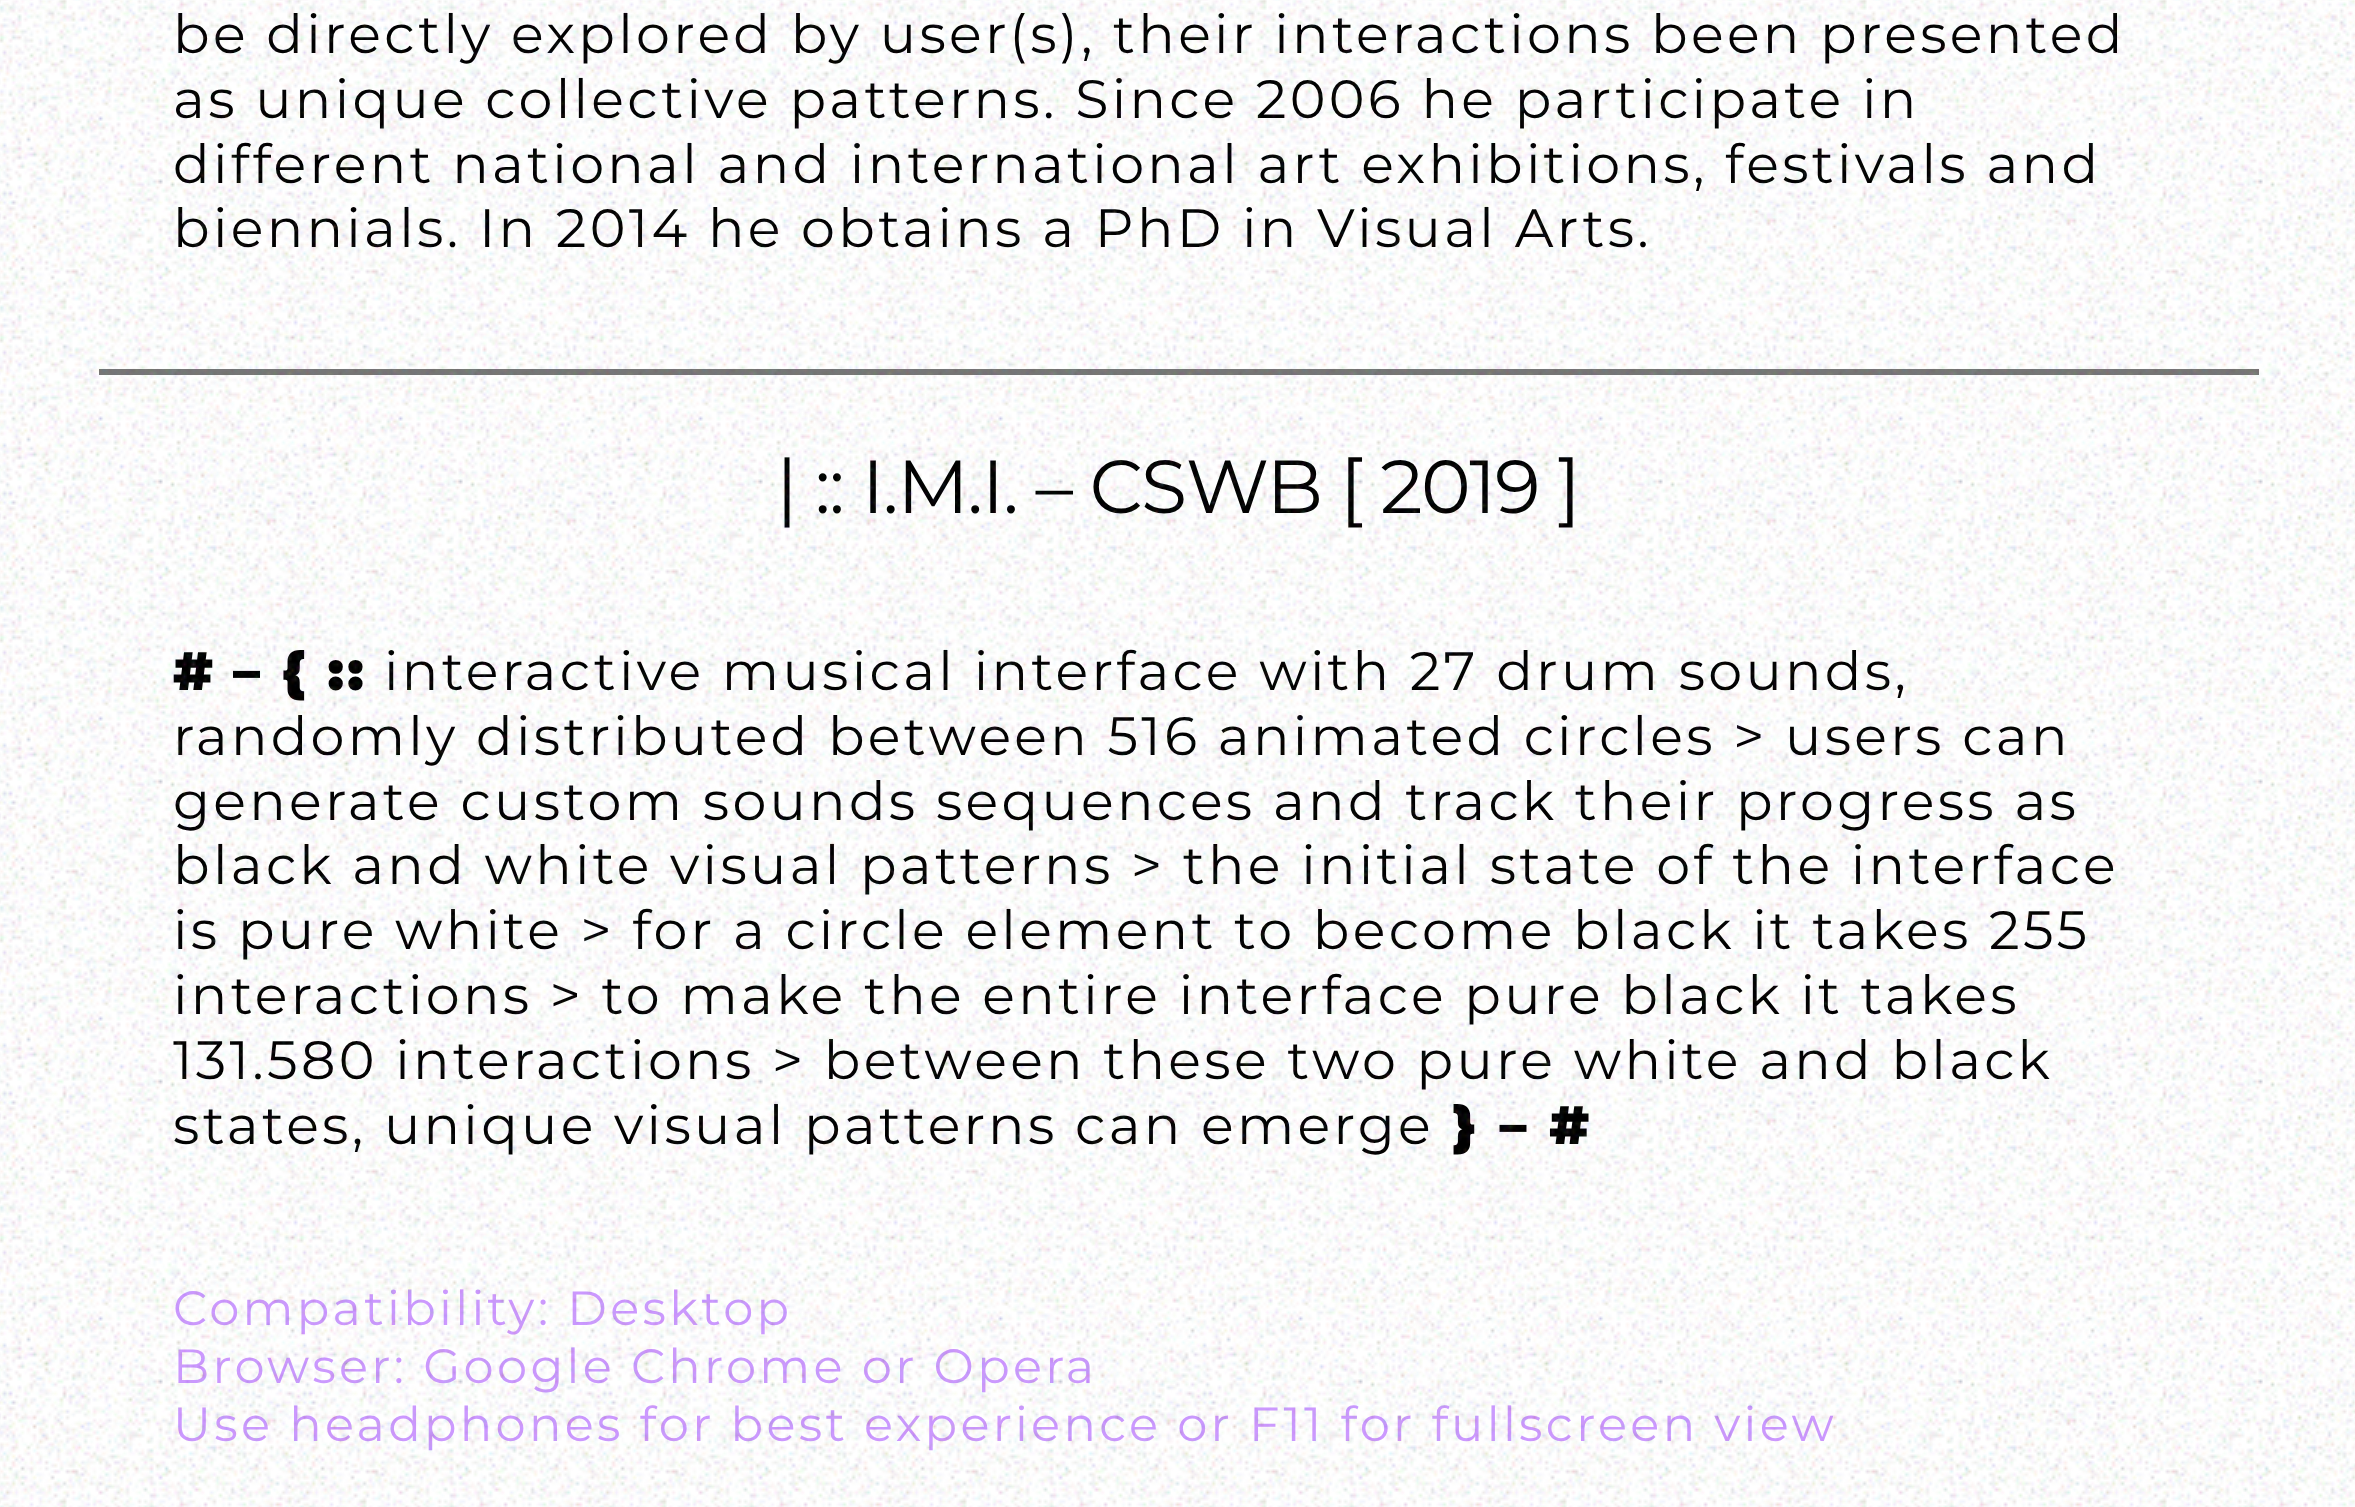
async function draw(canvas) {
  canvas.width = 2355;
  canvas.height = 1507;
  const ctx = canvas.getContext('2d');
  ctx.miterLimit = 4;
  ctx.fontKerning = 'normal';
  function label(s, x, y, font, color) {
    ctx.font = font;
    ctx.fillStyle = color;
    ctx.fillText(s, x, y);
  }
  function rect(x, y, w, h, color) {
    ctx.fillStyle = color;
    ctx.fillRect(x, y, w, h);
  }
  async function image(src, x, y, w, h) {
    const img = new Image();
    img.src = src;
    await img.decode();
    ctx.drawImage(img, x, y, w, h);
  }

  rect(0, 0, 2355, 1507, '#fff');
  ctx.letterSpacing = '3.3px';
  label('be directly explored by user(s), their interactions been presented', 173, 53, '54px Montserrat', '#000');
  label('as unique collective patterns. Since 2006 he participate in', 173, 118, '54px Montserrat', '#000');
  label('different national and international art exhibitions, festivals and', 173, 183, '54px Montserrat', '#000');
  label('biennials. In 2014 he obtains a PhD in Visual Arts.', 173, 247, '54px Montserrat', '#000');
  rect(99, 369, 2160, 6, '#767676');
  ctx.letterSpacing = '-1.5px';
  label('| :: I.M.I. – CSWB [ 2019 ]', 776, 513, '75px Montserrat', '#000');
  ctx.letterSpacing = '3.3px';
  label('#', 173, 690, '900 54px Montserrat', '#000');
  label('–', 233, 690, '900 54px Montserrat', '#000');
  label('{ ::', 281, 690, '900 54px Montserrat', '#000');
  label('interactive musical interface with 27 drum sounds,', 384, 690, '54px Montserrat', '#000');
  label('randomly distributed between 516 animated circles > users can', 173, 755, '54px Montserrat', '#000');
  label('generate custom sounds sequences and track their progress as', 173, 820, '54px Montserrat', '#000');
  label('black and white visual patterns > the initial state of the interface', 173, 884, '54px Montserrat', '#000');
  label('is pure white > for a circle element to become black it takes 255', 173, 949, '54px Montserrat', '#000');
  label('interactions > to make the entire interface pure black it takes', 173, 1014, '54px Montserrat', '#000');
  label('131.580 interactions > between these two pure white and black', 173, 1079, '54px Montserrat', '#000');
  label('states, unique visual patterns can emerge', 173, 1144, '54px Montserrat', '#000');
  label('} – #', 1453, 1144, '900 54px Montserrat', '#000');
  label('Compatibility: Desktop', 173, 1325, '48px Montserrat', '#c9f');
  label('Browser: Google Chrome or Opera', 173, 1383, '48px Montserrat', '#c9f');
  label('Use headphones for best experience or F11 for fullscreen view', 173, 1441, '48px Montserrat', '#c9f');
  await image('assets/img1.png', 0, 0, 2355, 1507);
}

draw(document.querySelector('canvas'));
